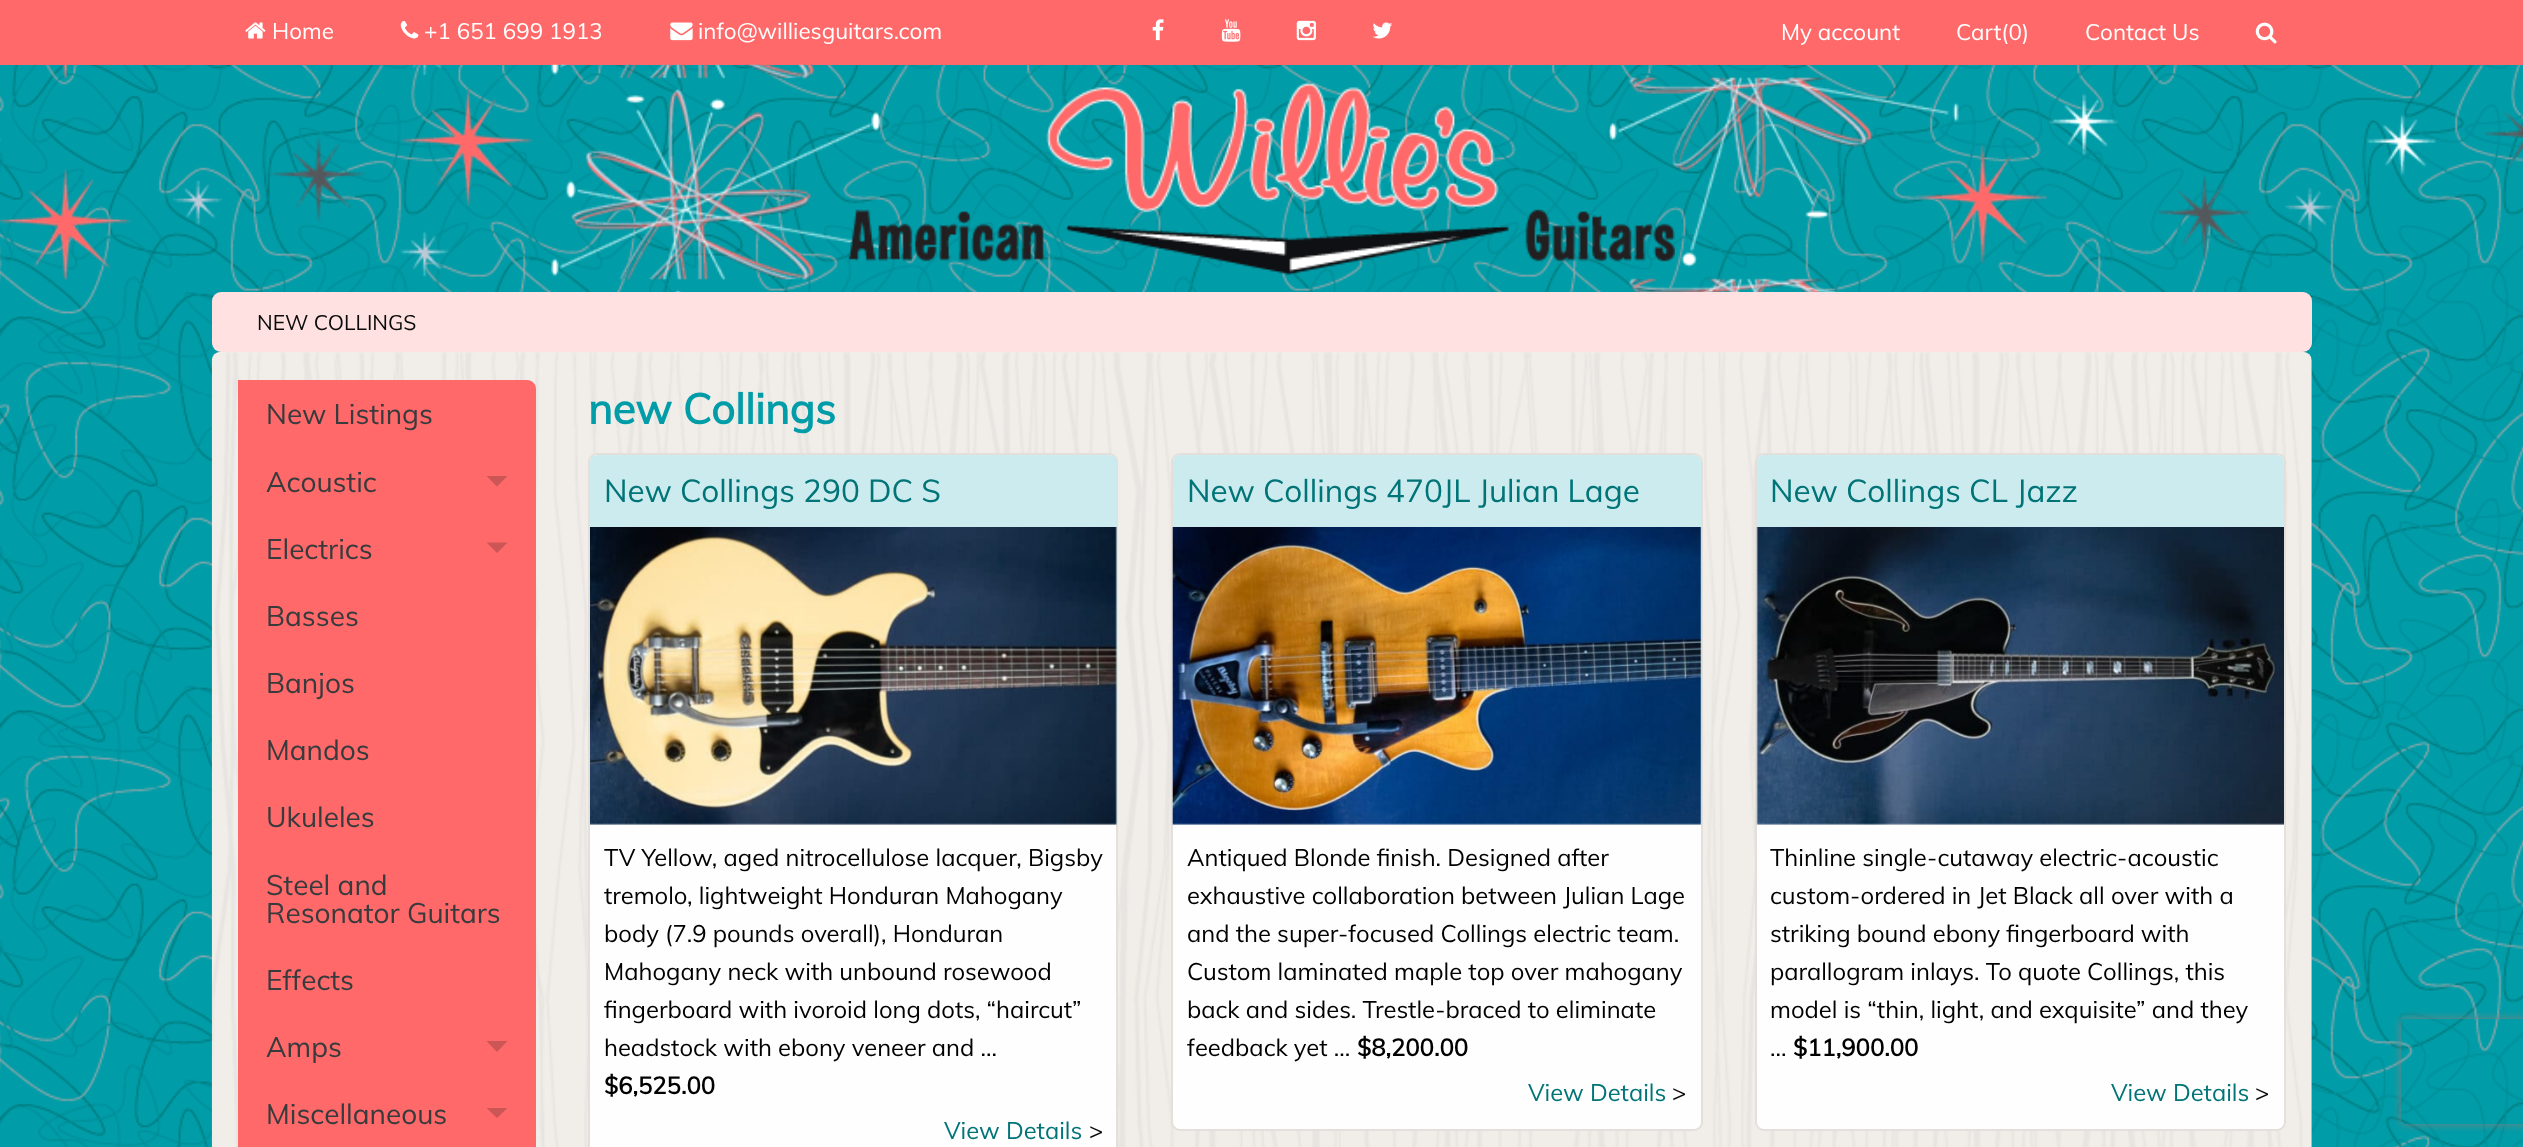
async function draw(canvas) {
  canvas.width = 2523;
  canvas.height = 1147;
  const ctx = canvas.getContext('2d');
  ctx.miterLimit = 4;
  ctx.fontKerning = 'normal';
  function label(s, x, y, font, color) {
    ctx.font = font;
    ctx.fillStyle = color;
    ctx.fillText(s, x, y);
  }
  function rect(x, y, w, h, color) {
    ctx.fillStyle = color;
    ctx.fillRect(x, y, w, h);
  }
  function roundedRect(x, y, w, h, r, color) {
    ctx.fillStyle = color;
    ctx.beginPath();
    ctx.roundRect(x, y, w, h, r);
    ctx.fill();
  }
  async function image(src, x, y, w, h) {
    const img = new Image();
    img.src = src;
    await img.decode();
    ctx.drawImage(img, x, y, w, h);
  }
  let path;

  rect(0, 0, 2523, 1147, '#fff');
  await image('assets/img1.png', 0, 65, 2523, 1082);
  rect(0, 0, 2523, 65, '#ff6969');
  await image('assets/img2.png', 245, 22, 21, 17);
  label('Home', 272, 39, '22.4px Muli', '#fff');
  await image('assets/img3.png', 400, 20, 19, 19);
  label('+1 651 699 1913', 424, 39, '22.4px Muli', '#fff');
  await image('assets/img4.png', 670, 22, 23, 19);
  label('info@williesguitars.com', 698, 39, '22.4px Muli', '#fff');
  await image('assets/img5.png', 1152, 19, 12, 22);
  await image('assets/img6.png', 1221, 19, 20, 23);
  await image('assets/img7.png', 1296, 20, 20, 21);
  await image('assets/img8.png', 1372, 22, 21, 17);
  label('My account', 1781, 40, '22.4px Muli', '#fff');
  label('Cart(0)', 1956, 40, '22.4px Muli', '#fff');
  label('Contact Us', 2085, 40, '22.4px Muli', '#fff');
  await image('assets/img9.png', 2255, 22, 22, 22);
  await image('assets/img10.png', 0, 64, 2523, 228);
  await image('assets/img11.png', 848, 82, 827, 193);
  roundedRect(212, 292, 2100, 60, 9, '#ffe1e1');
  label('NEW COLLINGS', 257, 330, '21px Muli', '#0a0a0a');
  await image('assets/img12.png', 211, 352, 2101, 795);
  ctx.fillStyle = '#ff6969';
  path = new Path2D('M238 380H527C532 380 536 384 536 389V1147C536 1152 532 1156 527 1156H238Z');
  ctx.fill(path);
  label('New Listings', 266, 424, '28px Muli', '#383b3d');
  label('Acoustic', 266, 492, '28px Muli', '#383b3d');
  ctx.fillStyle = '#cc5656';
  path = new Path2D('M486.5 476H507.5L497 486.5Z');
  ctx.fill(path);
  label('Electrics', 266, 559, '28px Muli', '#383b3d');
  ctx.fillStyle = '#cc5656';
  path = new Path2D('M486.5 542.5H507.5L497 553Z');
  ctx.fill(path);
  label('Basses', 266, 626, '28px Muli', '#383b3d');
  label('Banjos', 266, 693, '28px Muli', '#383b3d');
  label('Mandos', 266, 760, '28px Muli', '#383b3d');
  label('Ukuleles', 266, 827, '28px Muli', '#383b3d');
  label('Steel and', 266, 895, '28px Muli', '#383b3d');
  label('Resonator Guitars', 266, 923, '28px Muli', '#383b3d');
  label('Effects', 266, 990, '28px Muli', '#383b3d');
  label('Amps', 266, 1057, '28px Muli', '#383b3d');
  ctx.fillStyle = '#cc5656';
  path = new Path2D('M486.5 1041H507.5L497 1052Z');
  ctx.fill(path);
  label('Miscellaneous', 266, 1124, '28px Muli', '#383b3d');
  ctx.fillStyle = '#cc5656';
  path = new Path2D('M486.5 1108H507.5L497 1118Z');
  ctx.fill(path);
  label('new Collings', 588, 424, 'bold 42px Muli', '#009da8');
  ctx.fillStyle = '#fefefe';
  ctx.beginPath();
  ctx.roundRect(589, 454, 528, 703, 8);
  ctx.fill();
  ctx.strokeStyle = '#e3dfdb';
  ctx.lineWidth = 2;
  ctx.stroke();
  ctx.fillStyle = '#ccebee';
  ctx.beginPath();
  ctx.roundRect(590, 455, 527, 369, [7, 7, 0, 0]);
  ctx.fill();
  label('New Collings 290 DC S', 604, 502, '31.5px Muli', '#007477');
  await image('assets/img13.png', 590, 527, 527, 298);
  label('TV Yellow, aged nitrocellulose lacquer, Bigsby', 604, 866, '23.8px Muli', '#000');
  label('tremolo, lightweight Honduran Mahogany', 604, 904, '23.8px Muli', '#000');
  label('body (7.9 pounds overall), Honduran', 604, 942, '23.8px Muli', '#000');
  label('Mahogany neck with unbound rosewood', 604, 980, '23.8px Muli', '#000');
  label('fingerboard with ivoroid long dots, “haircut”', 604, 1018, '23.8px Muli', '#000');
  label('headstock with ebony veneer and ...', 604, 1056, '23.8px Muli', '#000');
  label('$6,525.00', 604, 1094, 'bold 23.8px Muli', '#000');
  label('View Details', 944, 1139, '23.8px Muli', '#007477');
  label('>', 1089, 1139, '23.8px Muli', '#0a0a0a');
  ctx.fillStyle = '#fefefe';
  ctx.beginPath();
  ctx.roundRect(1172, 454, 530, 676, 8);
  ctx.fill();
  ctx.stroke();
  ctx.fillStyle = '#ccebee';
  ctx.beginPath();
  ctx.roundRect(1173, 455, 528, 369, [7, 7, 0, 0]);
  ctx.fill();
  label('New Collings 470JL Julian Lage', 1187, 502, '31.5px Muli', '#007477');
  await image('assets/img14.png', 1172, 527, 530, 298);
  label('Antiqued Blonde finish. Designed after', 1187, 866, '23.8px Muli', '#000');
  label('exhaustive collaboration between Julian Lage', 1187, 904, '23.8px Muli', '#000');
  label('and the super-focused Collings electric team.', 1187, 942, '23.8px Muli', '#000');
  label('Custom laminated maple top over mahogany', 1187, 980, '23.8px Muli', '#000');
  label('back and sides. Trestle-braced to eliminate', 1187, 1018, '23.8px Muli', '#000');
  label('feedback yet ...', 1187, 1056, '23.8px Muli', '#000');
  label('$8,200.00', 1357, 1056, 'bold 23.8px Muli', '#000');
  label('View Details', 1528, 1101, '23.8px Muli', '#007477');
  label('>', 1672, 1101, '23.8px Muli', '#0a0a0a');
  ctx.fillStyle = '#fefefe';
  ctx.beginPath();
  ctx.roundRect(1756, 454, 529, 676, 8);
  ctx.fill();
  ctx.stroke();
  ctx.fillStyle = '#ccebee';
  ctx.beginPath();
  ctx.roundRect(1757, 455, 527, 369, [7, 7, 0, 0]);
  ctx.fill();
  label('New Collings CL Jazz', 1770, 502, '31.5px Muli', '#007477');
  await image('assets/img15.png', 1756, 527, 528, 298);
  label('Thinline single-cutaway electric-acoustic', 1770, 866, '23.8px Muli', '#000');
  label('custom-ordered in Jet Black all over with a', 1770, 904, '23.8px Muli', '#000');
  label('striking bound ebony fingerboard with', 1770, 942, '23.8px Muli', '#000');
  label('parallogram inlays. To quote Collings, this', 1770, 980, '23.8px Muli', '#000');
  label('model is “thin, light, and exquisite” and they', 1770, 1018, '23.8px Muli', '#000');
  label('...', 1770, 1056, '23.8px Muli', '#000');
  label('$11,900.00', 1793, 1056, 'bold 23.8px Muli', '#000');
  label('View Details', 2111, 1101, '23.8px Muli', '#007477');
  label('>', 2255, 1101, '23.8px Muli', '#0a0a0a');
  ctx.save();
  path = new Path2D('M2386 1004H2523V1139H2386ZM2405 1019H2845C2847 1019 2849 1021 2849 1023V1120C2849 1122 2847 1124 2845 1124H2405C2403 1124 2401 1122 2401 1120V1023C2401 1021 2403 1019 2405 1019Z');
  ctx.clip(path, 'evenodd');
  ctx.fillStyle = '#808080';
  ctx.filter = 'blur(4.5px)';
  ctx.beginPath();
  ctx.roundRect(2401, 1019, 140, 105, 4);
  ctx.fill();
  ctx.filter = 'none';
  ctx.restore();
}

draw(document.querySelector('canvas'));
